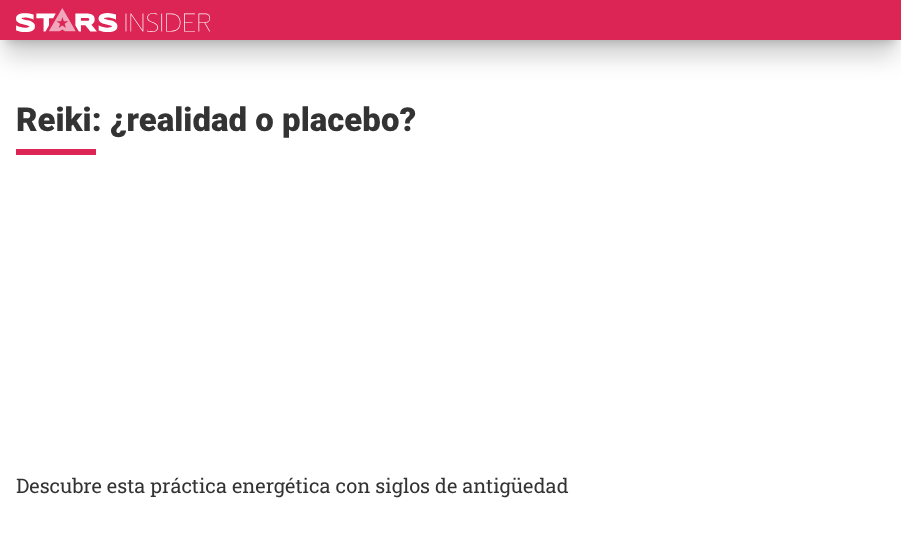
async function draw(canvas) {
  canvas.width = 901;
  canvas.height = 558;
  const ctx = canvas.getContext('2d');
  ctx.miterLimit = 4;
  ctx.fontKerning = 'normal';
  function label(s, x, y, font, color) {
    ctx.font = font;
    ctx.fillStyle = color;
    ctx.fillText(s, x, y);
  }
  function rect(x, y, w, h, color) {
    ctx.fillStyle = color;
    ctx.fillRect(x, y, w, h);
  }
  async function image(src, x, y, w, h) {
    const img = new Image();
    img.src = src;
    await img.decode();
    ctx.drawImage(img, x, y, w, h);
  }

  rect(0, 0, 901, 558, '#fff');
  ctx.fillStyle = '#00000033';
  ctx.filter = 'blur(5px)';
  ctx.beginPath();
  ctx.rect(6, 14, 889, 28);
  ctx.fill();
  ctx.filter = 'none';
  ctx.filter = 'blur(12.5px)';
  ctx.beginPath();
  ctx.rect(5, 25, 891, 30);
  ctx.fill();
  ctx.filter = 'none';
  rect(0, 0, 901, 40, '#dc2555');
  await image('assets/img1.png', 16, 8, 194, 24);
  label('Reiki: ¿realidad o placebo?', 16, 131, '900 33px Roboto', '#333');
  rect(16, 149, 80, 6, '#dc2555');
  label('Descubre esta práctica energética con siglos de antigüedad', 16, 493, '20px Roboto Slab', '#333');
}

draw(document.querySelector('canvas'));
